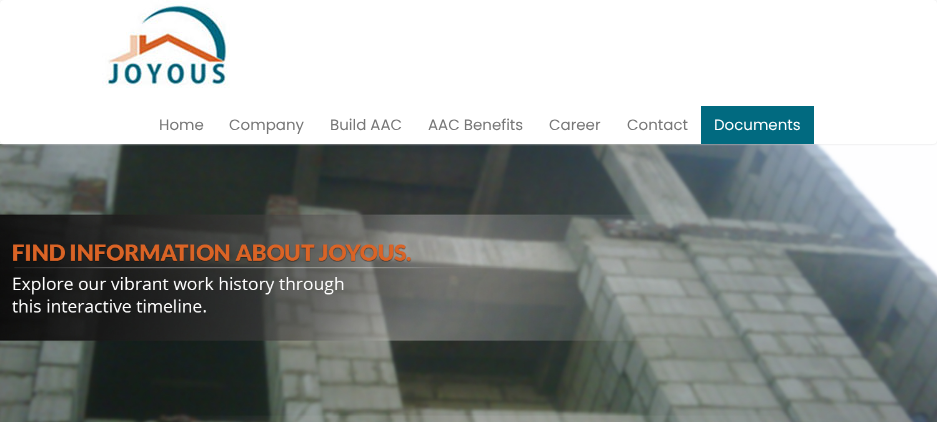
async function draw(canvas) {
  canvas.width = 937;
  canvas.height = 422;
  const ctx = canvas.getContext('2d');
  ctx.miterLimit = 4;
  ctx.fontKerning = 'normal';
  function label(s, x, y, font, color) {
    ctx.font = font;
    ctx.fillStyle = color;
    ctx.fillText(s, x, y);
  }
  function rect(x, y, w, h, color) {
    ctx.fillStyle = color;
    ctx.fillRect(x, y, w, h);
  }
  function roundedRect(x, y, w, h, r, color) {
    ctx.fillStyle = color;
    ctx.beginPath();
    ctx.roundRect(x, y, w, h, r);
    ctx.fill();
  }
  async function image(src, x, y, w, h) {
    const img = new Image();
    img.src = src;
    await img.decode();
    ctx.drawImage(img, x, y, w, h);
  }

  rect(0, 0, 937, 422, '#fff');
  await image('assets/img2.png', 0, 144, 937, 278);
  ctx.fillStyle = '#ddd';
  ctx.filter = 'blur(1px)';
  ctx.beginPath();
  ctx.roundRect(0, 0, 937, 144, 4);
  ctx.fill();
  ctx.filter = 'none';
  roundedRect(0, 0, 937, 144, 4, '#fff');
  await image('assets/img1.png', 102, 0, 128, 88);
  label('Home', 159, 130, '15px Poppins', '#777');
  label('Company', 229, 130, '15px Poppins', '#777');
  label('Build AAC', 330, 130, '15px Poppins', '#777');
  label('AAC Benefits', 428, 130, '15px Poppins', '#777');
  label('Career', 549, 130, '15px Poppins', '#777');
  label('Contact', 627, 130, '15px Poppins', '#777');
  rect(701, 106, 113, 38, '#016a80');
  label('Documents', 714, 130, '15px Poppins', '#fff');
}

draw(document.querySelector('canvas'));
